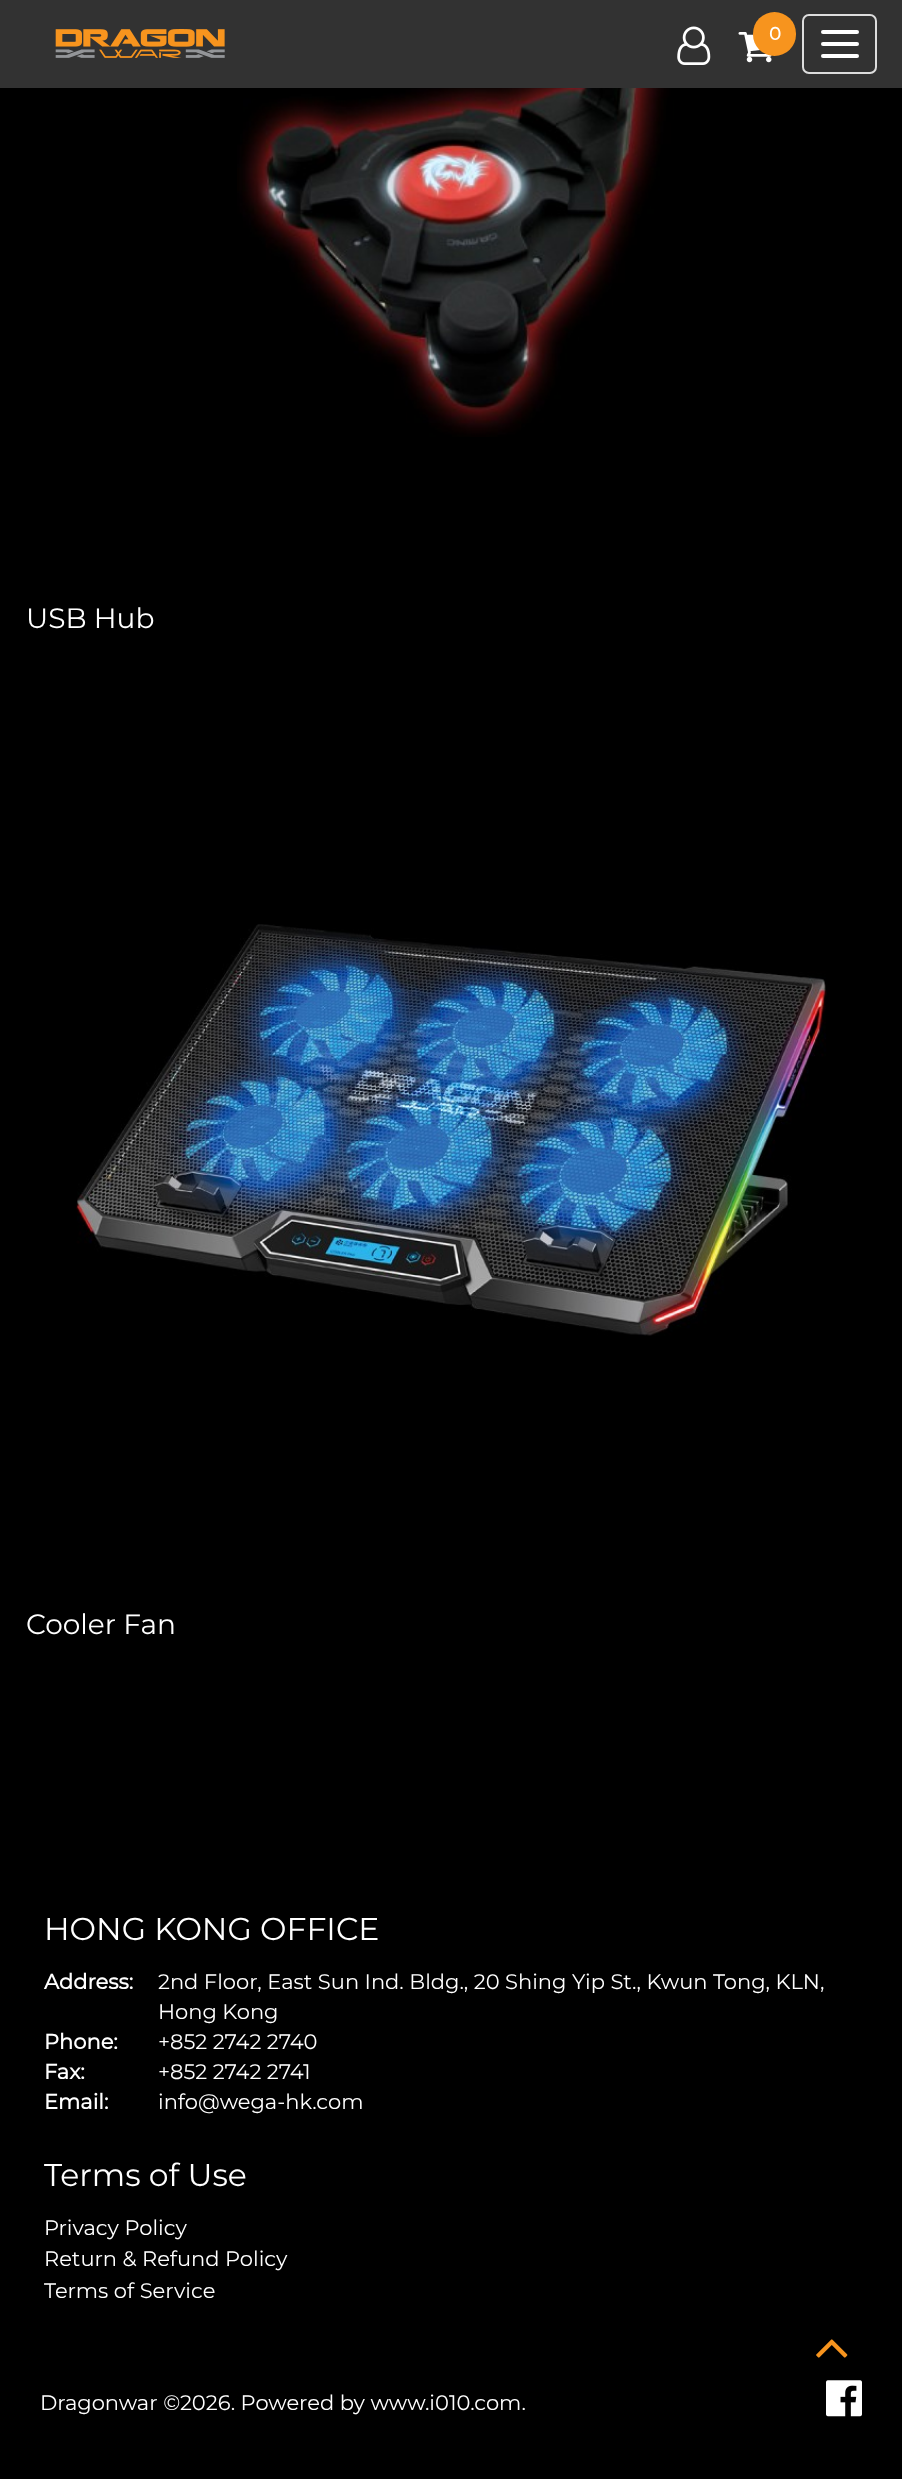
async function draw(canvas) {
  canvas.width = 902;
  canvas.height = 2479;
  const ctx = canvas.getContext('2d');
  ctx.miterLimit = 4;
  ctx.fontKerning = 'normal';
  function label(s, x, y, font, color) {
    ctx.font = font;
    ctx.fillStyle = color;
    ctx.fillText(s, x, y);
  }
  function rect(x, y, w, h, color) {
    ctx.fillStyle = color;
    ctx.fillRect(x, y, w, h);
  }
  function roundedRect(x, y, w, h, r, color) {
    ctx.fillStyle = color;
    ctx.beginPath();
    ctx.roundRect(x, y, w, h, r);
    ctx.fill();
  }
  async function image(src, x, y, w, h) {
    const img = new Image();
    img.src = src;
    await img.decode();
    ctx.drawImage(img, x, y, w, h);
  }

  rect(0, 0, 902, 2479, '#000');
  rect(0, 0, 902, 88, '#323232');
  await image('assets/img1.png', 55, 29, 170, 29);
  await image('assets/img2.png', 677, 26, 34, 39);
  await image('assets/img3.png', 738, 32, 34, 31);
  roundedRect(753, 12, 43, 44, 21.5, '#f7941e');
  label('0', 769, 40, 'bold 18px Montserrat', '#fff');
  ctx.beginPath();
  ctx.roundRect(803, 15, 73, 58, 6);
  ctx.strokeStyle = '#ddd';
  ctx.lineWidth = 2;
  ctx.stroke();
  roundedRect(821, 30, 38, 4, 2, '#fff');
  roundedRect(821, 42, 38, 4, 2, '#fff');
  roundedRect(821, 54, 38, 4, 2, '#fff');
  await image('assets/img4.png', 237, 88, 437, 349);
  label('USB Hub', 26, 628, '100 28px Montserrat', '#fff');
  await image('assets/img5.png', 76, 924, 751, 412);
  label('Cooler Fan', 26, 1634, '100 28px Montserrat', '#fff');
  label('HONG KONG OFFICE', 44, 1940, '100 31.5px Montserrat', '#fff');
  label('Address:', 44, 1989, 'bold 21px Montserrat', '#fff');
  label('2nd Floor, East Sun Ind. Bldg., 20 Shing Yip St., Kwun Tong, KLN,', 158, 1989, '100 21px Montserrat', '#fff');
  label('Hong Kong', 158, 2019, '100 21px Montserrat', '#fff');
  label('Phone:', 44, 2049, 'bold 21px Montserrat', '#fff');
  label('+852 2742 2740', 158, 2049, '100 21px Montserrat', '#fff');
  label('Fax:', 44, 2079, 'bold 21px Montserrat', '#fff');
  label('+852 2742 2741', 158, 2079, '100 21px Montserrat', '#fff');
  label('Email:', 44, 2109, 'bold 21px Montserrat', '#fff');
  label('info@wega-hk.com', 158, 2109, '100 21px Montserrat', '#fff');
  label('Terms of Use', 44, 2186, '100 31.5px Montserrat', '#fff');
  label('Privacy Policy', 44, 2235, '100 21px Montserrat', '#fff');
  label('Return & Refund Policy', 44, 2266, '100 21px Montserrat', '#fff');
  label('Terms of Service', 44, 2298, '100 21px Montserrat', '#fff');
  label('Dragonwar ©2026. Powered by www.i010.com.', 40, 2410, '100 21px Montserrat', '#fff');
  await image('assets/img6.png', 826, 2380, 36, 37);
  await image('assets/img7.png', 816, 2339, 32, 19);
}

draw(document.querySelector('canvas'));
